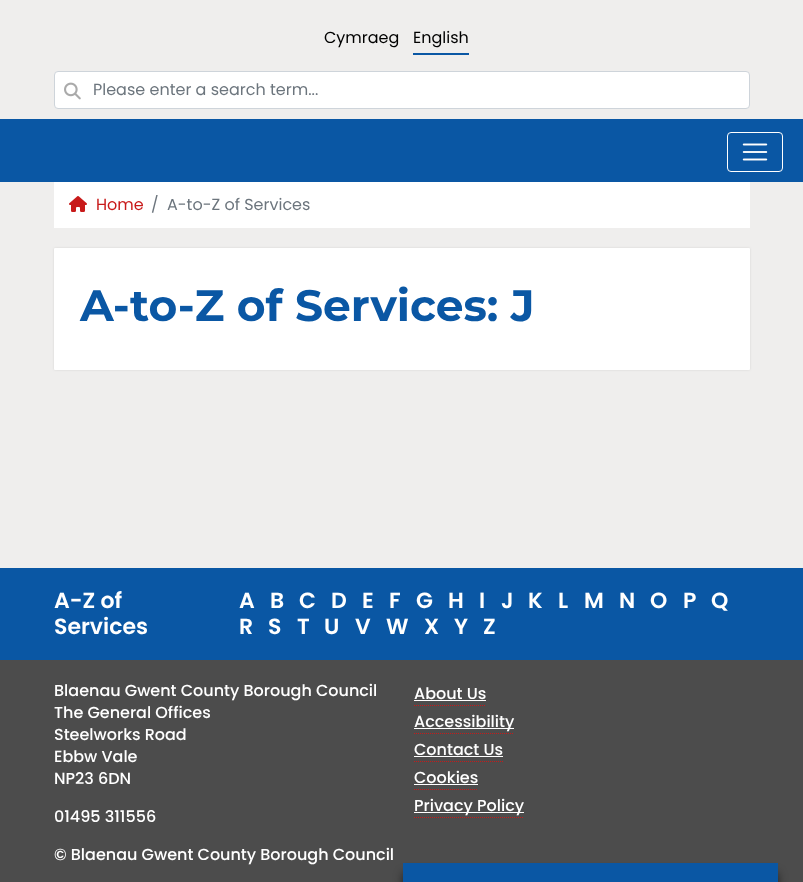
async function draw(canvas) {
  canvas.width = 803;
  canvas.height = 882;
  const ctx = canvas.getContext('2d');
  ctx.miterLimit = 4;
  ctx.fontKerning = 'normal';
  function label(s, x, y, font, color) {
    ctx.font = font;
    ctx.fillStyle = color;
    ctx.fillText(s, x, y);
  }
  function rect(x, y, w, h, color) {
    ctx.fillStyle = color;
    ctx.fillRect(x, y, w, h);
  }
  function roundedRect(x, y, w, h, r, color) {
    ctx.fillStyle = color;
    ctx.beginPath();
    ctx.roundRect(x, y, w, h, r);
    ctx.fill();
  }
  async function image(src, x, y, w, h) {
    const img = new Image();
    img.src = src;
    await img.decode();
    ctx.drawImage(img, x, y, w, h);
  }
  let path;

  rect(0, 0, 803, 882, '#efeeed');
  label('Cymraeg', 324, 43, '16px Poppins', '#000');
  label('English', 413, 43, '16px Poppins', '#000');
  rect(413, 53, 56, 2, '#0a57a4');
  ctx.fillStyle = '#fff';
  ctx.beginPath();
  ctx.roundRect(54.5, 71.5, 695, 37, 3.5);
  ctx.fill();
  ctx.strokeStyle = '#ced4da';
  ctx.stroke();
  await image('assets/img1.png', 64, 82, 17, 18);
  label('Please enter a search term...', 93, 95, '16px Poppins', '#6c757d');
  rect(0, 119, 803, 63, '#0a57a4');
  ctx.beginPath();
  ctx.roundRect(727.5, 132.5, 55, 39, 3.5);
  ctx.strokeStyle = '#fff';
  ctx.stroke();
  await image('assets/img2.png', 742, 143, 26, 18);
  rect(54, 182, 696, 46, '#fff');
  await image('assets/img3.png', 69, 196, 18, 16);
  label('Home', 96, 210, '16px Poppins', '#c81a1a');
  label('/', 151, 210, '16px Poppins', '#6c757d');
  label('A-to-Z of Services', 167, 210, '16px Poppins', '#6c757d');
  ctx.fillStyle = '#0000001a';
  ctx.filter = 'blur(1px)';
  ctx.beginPath();
  ctx.roundRect(54, 248, 696, 122, 1);
  ctx.fill();
  ctx.filter = 'none';
  roundedRect(54, 248, 696, 122, 1, '#fff');
  label('A-to-Z of Services: J', 80, 321, 'bold 44px Montserrat', '#0a57a4');
  rect(0, 568, 803, 92, '#0a57a4');
  label('A-Z of', 54, 608, '600 22px Poppins', '#fff');
  label('Services', 54, 634, '600 22px Poppins', '#fff');
  label('A', 239, 608, '600 22px Poppins', '#fff');
  label('B', 270, 608, '600 22px Poppins', '#fff');
  label('C', 299, 608, '600 22px Poppins', '#fff');
  label('D', 331, 608, '600 22px Poppins', '#fff');
  label('E', 362, 608, '600 22px Poppins', '#fff');
  label('F', 389, 608, '600 22px Poppins', '#fff');
  label('G', 416, 608, '600 22px Poppins', '#fff');
  label('H', 448, 608, '600 22px Poppins', '#fff');
  label('I', 479, 608, '600 22px Poppins', '#fff');
  label('J', 501, 608, '600 22px Poppins', '#fff');
  label('K', 528, 608, '600 22px Poppins', '#fff');
  label('L', 558, 608, '600 22px Poppins', '#fff');
  label('M', 584, 608, '600 22px Poppins', '#fff');
  label('N', 619, 608, '600 22px Poppins', '#fff');
  label('O', 650, 608, '600 22px Poppins', '#fff');
  label('P', 683, 608, '600 22px Poppins', '#fff');
  label('Q', 711, 608, '600 22px Poppins', '#fff');
  label('R', 239, 634, '600 22px Poppins', '#fff');
  label('S', 268, 634, '600 22px Poppins', '#fff');
  label('T', 297, 634, '600 22px Poppins', '#fff');
  label('U', 324, 634, '600 22px Poppins', '#fff');
  label('V', 355, 634, '600 22px Poppins', '#fff');
  label('W', 386, 634, '600 22px Poppins', '#fff');
  label('X', 424, 634, '600 22px Poppins', '#fff');
  label('Y', 454, 634, '600 22px Poppins', '#fff');
  label('Z', 483, 634, '600 22px Poppins', '#fff');
  rect(0, 660, 803, 222, '#4c4c4c');
  label('Blaenau Gwent County Borough Council', 54, 696, '500 16px Poppins', '#fff');
  label('The General Offices', 54, 718, '500 16px Poppins', '#fff');
  label('Steelworks Road', 54, 740, '500 16px Poppins', '#fff');
  label('Ebbw Vale', 54, 762, '500 16px Poppins', '#fff');
  label('NP23 6DN', 54, 784, '500 16px Poppins', '#fff');
  label('01495 311556', 54, 822, '500 16px Poppins', '#fff');
  label('About Us', 414, 699, '500 16px Poppins', '#fff');
  path = new Path2D('M414 705.5H486');
  ctx.strokeStyle = '#c81a1a';
  ctx.setLineDash([1, 1]);
  ctx.stroke(path);
  rect(414, 700, 72, 1, '#fff');
  rect(414, 728, 100, 1, '#fff');
  label('Accessibility', 414, 727, '500 16px Poppins', '#fff');
  path = new Path2D('M414 733.5H514');
  ctx.stroke(path);
  label('Contact Us', 414, 755, '500 16px Poppins', '#fff');
  path = new Path2D('M414 761.5H503');
  ctx.stroke(path);
  rect(414, 756, 89, 1, '#fff');
  label('Cookies', 414, 783, '500 16px Poppins', '#fff');
  path = new Path2D('M414 789.5H478');
  ctx.stroke(path);
  rect(414, 784, 64, 1, '#fff');
  rect(414, 812, 110, 1, '#fff');
  label('Privacy Policy', 414, 811, '500 16px Poppins', '#fff');
  path = new Path2D('M414 817.5H524');
  ctx.stroke(path);
  label('© Blaenau Gwent County Borough Council', 54, 860, '500 16px Poppins', '#fff');
  ctx.fillStyle = '#0000008f';
  ctx.filter = 'blur(5px)';
  ctx.beginPath();
  ctx.rect(403, 873, 375, 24);
  ctx.fill();
  ctx.filter = 'none';
  rect(403, 863, 375, 19, '#0a57a4');
}

draw(document.querySelector('canvas'));
